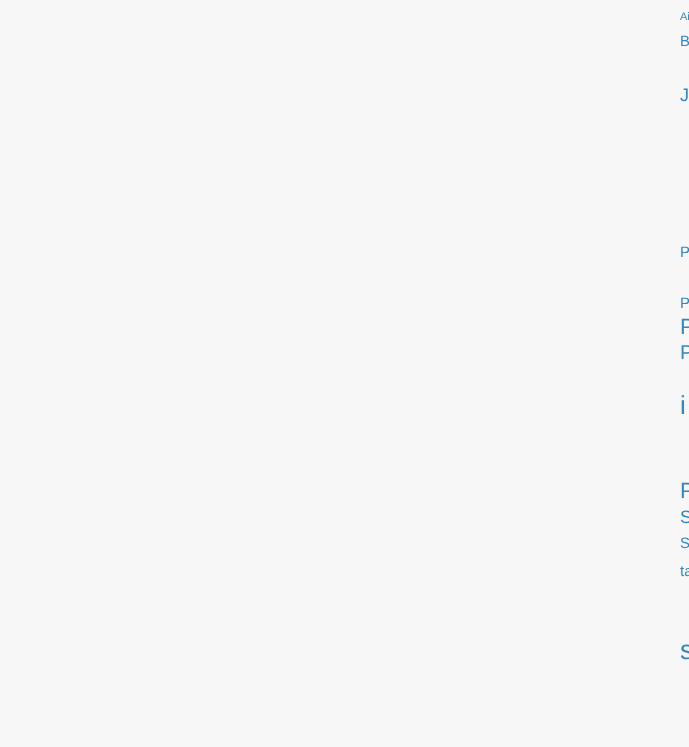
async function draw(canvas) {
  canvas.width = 689;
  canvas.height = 747;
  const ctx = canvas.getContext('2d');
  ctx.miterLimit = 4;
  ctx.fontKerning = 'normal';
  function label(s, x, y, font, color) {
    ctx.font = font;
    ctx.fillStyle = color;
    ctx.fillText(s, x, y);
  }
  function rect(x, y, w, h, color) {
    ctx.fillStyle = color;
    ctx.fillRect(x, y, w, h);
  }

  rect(0, 0, 689, 747, '#f7f7f7');
  label('Ai', 680, 20, '11px Liberation Sans', '#38b');
  label('B', 680, 46, '15px Liberation Sans', '#38b');
  label('J', 680, 101, '18px Liberation Sans', '#38b');
  label('P', 680, 257, '15px Liberation Sans', '#38b');
  label('P', 680, 308, '15px Liberation Sans', '#38b');
  label('P', 680, 334, '22px Liberation Sans', '#38b');
  label('P', 680, 359, '20px Liberation Sans', '#38b');
  label('i', 680, 414, '26px Liberation Sans', '#38b');
  label('P', 680, 498, '22px Liberation Sans', '#38b');
  label('S', 680, 523, '18px Liberation Sans', '#38b');
  label('S', 680, 548, '15px Liberation Sans', '#38b');
  label('ta', 680, 576, '15px Liberation Sans', '#38b');
  label('s', 680, 659, '27px Liberation Sans', '#38b');
}

draw(document.querySelector('canvas'));
